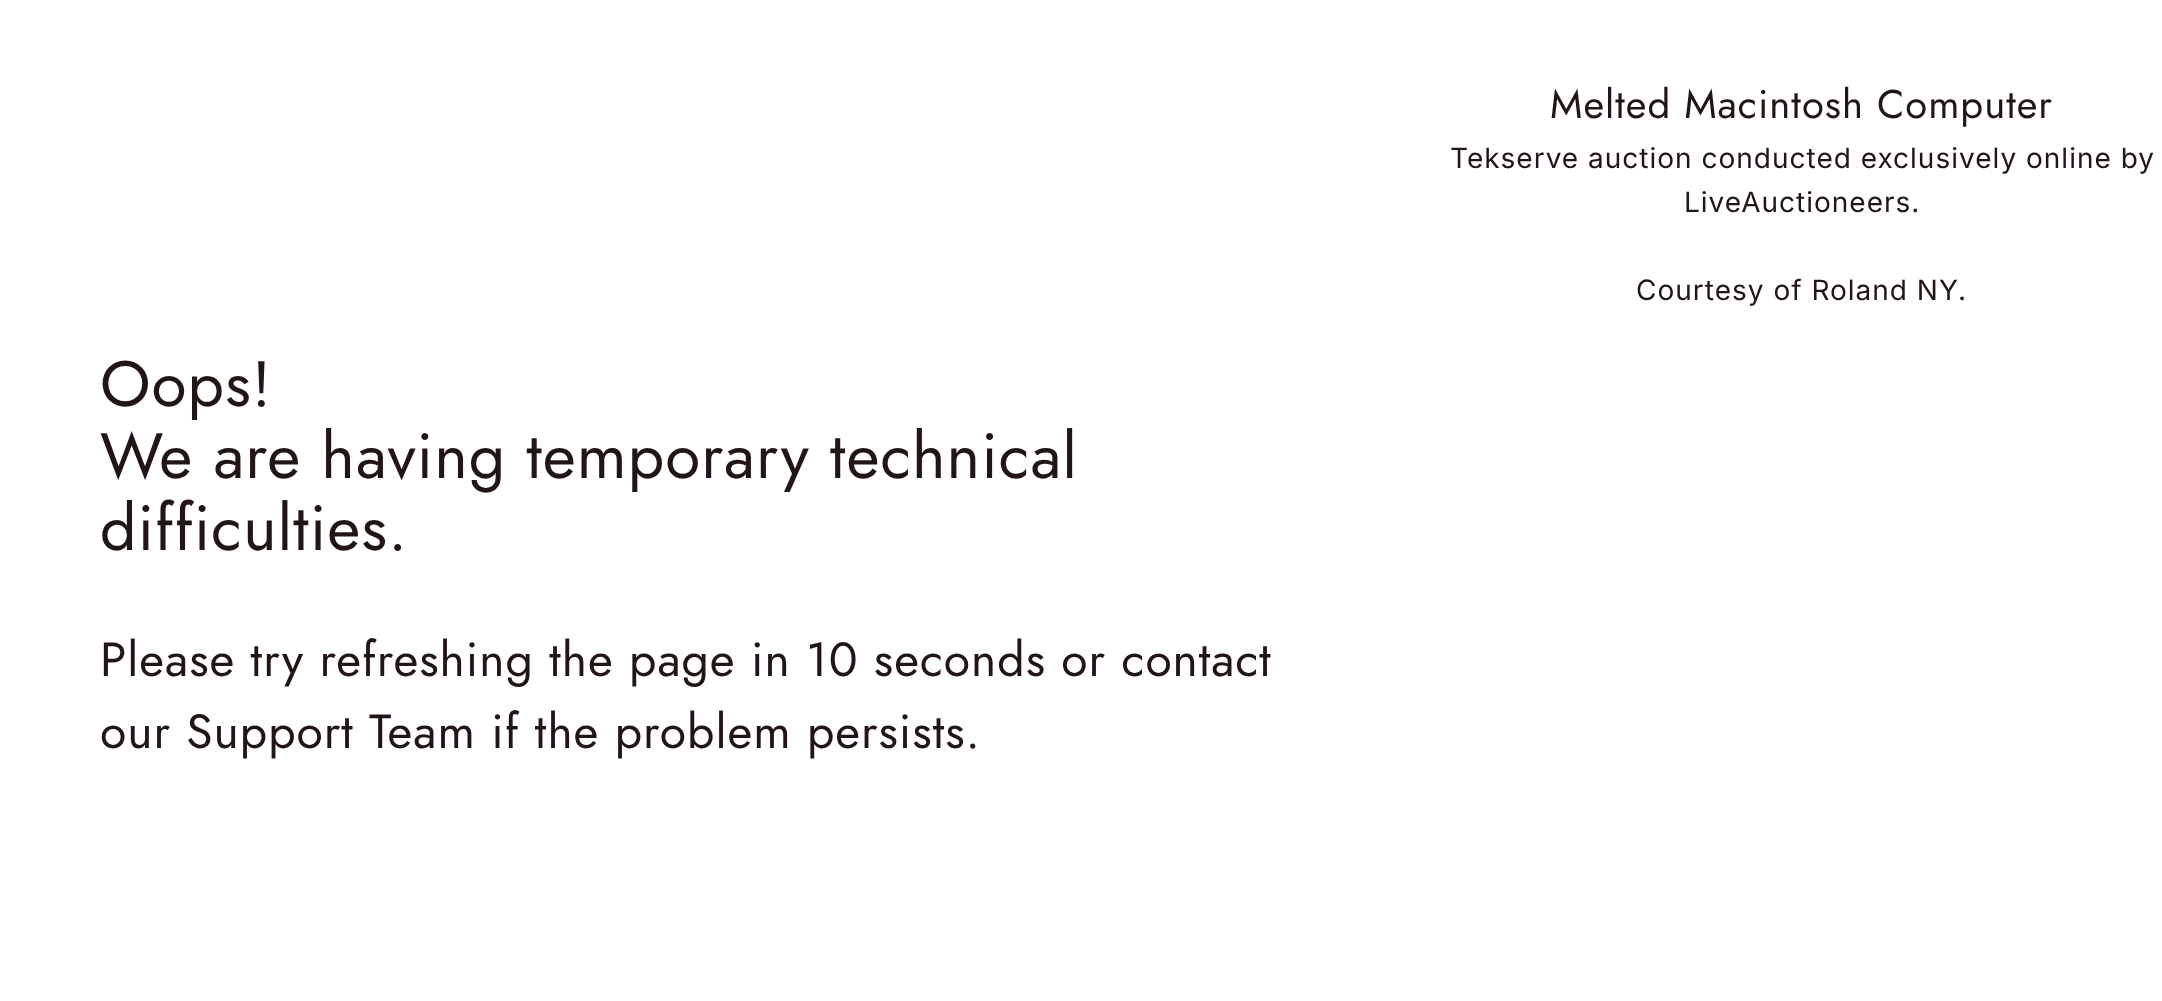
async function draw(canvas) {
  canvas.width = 2162;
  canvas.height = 1001;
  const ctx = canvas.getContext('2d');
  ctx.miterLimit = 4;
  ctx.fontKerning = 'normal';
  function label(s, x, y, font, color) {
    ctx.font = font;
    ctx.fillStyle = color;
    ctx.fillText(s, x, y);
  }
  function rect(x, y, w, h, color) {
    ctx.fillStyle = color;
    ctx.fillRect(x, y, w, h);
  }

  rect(0, 0, 2162, 1001, '#fff');
  ctx.letterSpacing = '1px';
  label('Melted Macintosh Computer', 1550, 118, '40px Jost', '#211614');
  label('Tekserve auction conducted exclusively online by', 1450, 168, '28px Inter', '#211614');
  label('LiveAuctioneers.', 1684, 212, '28px Inter', '#211614');
  label('Courtesy of Roland NY.', 1636, 300, '28px Inter', '#211614');
  label('Oops!', 100, 406, '64px Jost', '#211614');
  label('We are having temporary technical', 100, 478, '64px Jost', '#211614');
  label('difficulties.', 100, 550, '64px Jost', '#211614');
  label('Please try refreshing the page in 10 seconds or contact', 100, 676, '48px Jost', '#211614');
  label('our Support Team if the problem persists.', 100, 748, '48px Jost', '#211614');
}

draw(document.querySelector('canvas'));
